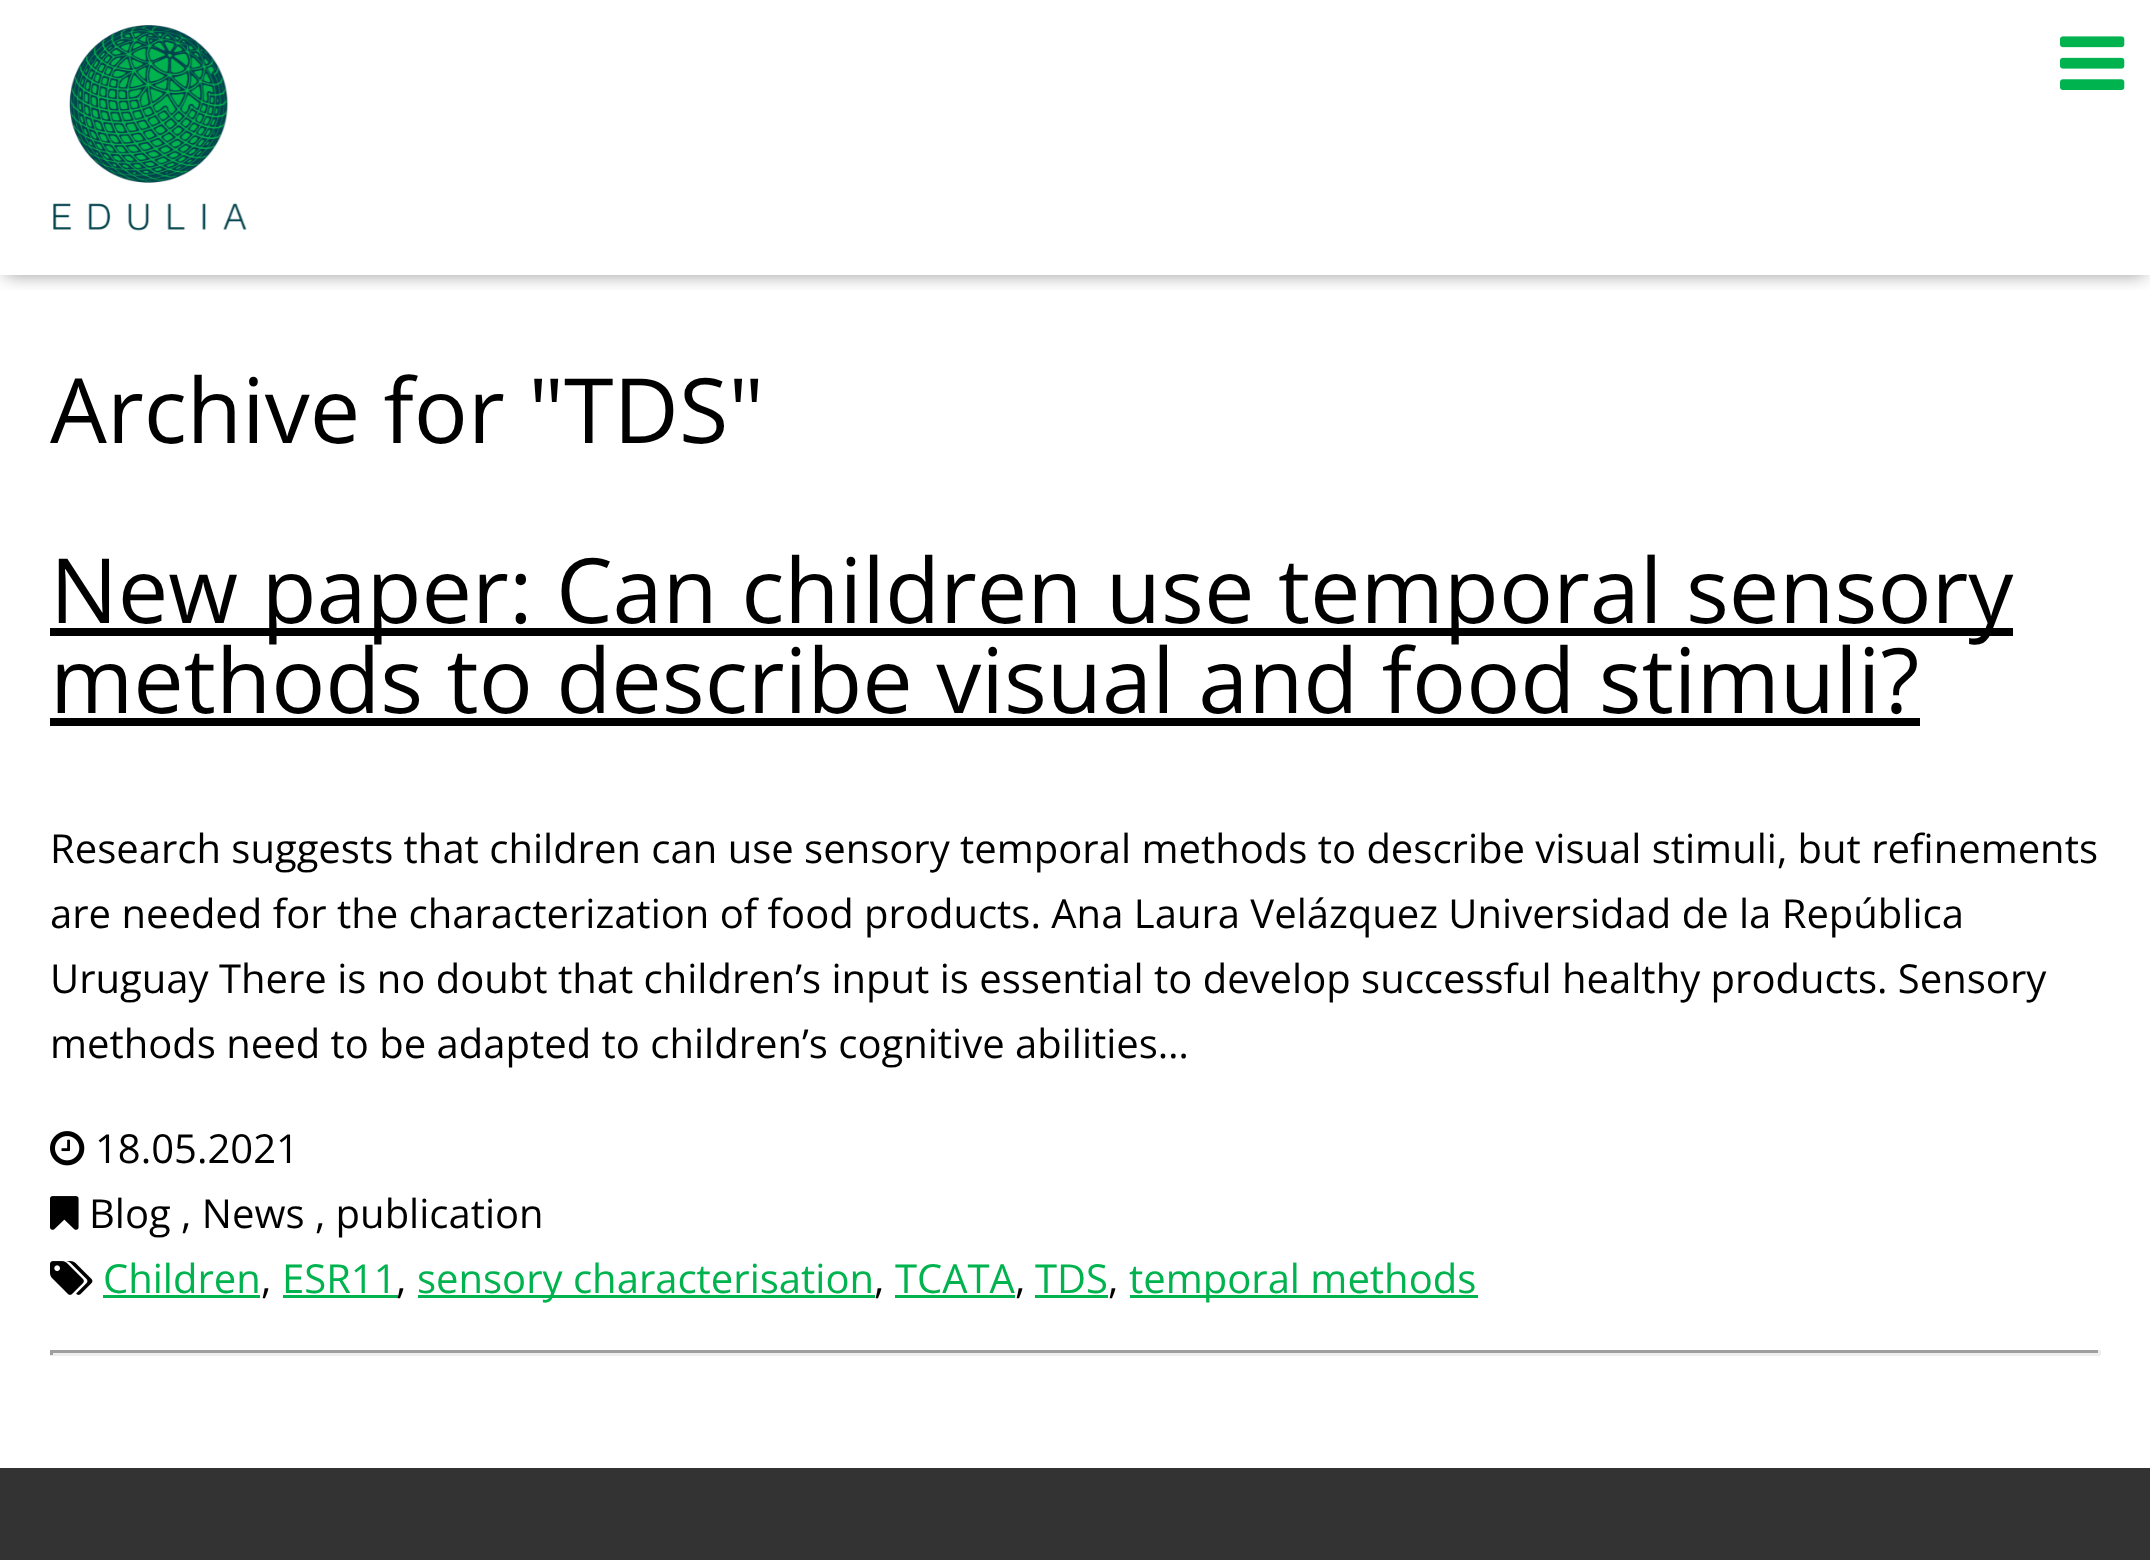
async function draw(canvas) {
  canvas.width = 2150;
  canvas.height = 1560;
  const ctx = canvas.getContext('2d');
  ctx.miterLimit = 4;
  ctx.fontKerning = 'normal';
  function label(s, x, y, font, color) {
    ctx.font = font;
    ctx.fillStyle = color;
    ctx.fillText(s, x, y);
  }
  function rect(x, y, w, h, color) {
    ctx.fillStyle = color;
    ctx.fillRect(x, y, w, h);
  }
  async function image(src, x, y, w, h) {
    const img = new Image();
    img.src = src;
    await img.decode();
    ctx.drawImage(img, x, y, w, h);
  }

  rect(0, 0, 2150, 1560, '#fff');
  ctx.save();
  ctx.beginPath();
  ctx.rect(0, 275, 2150, 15);
  ctx.clip();
  ctx.fillStyle = '#00000066';
  ctx.filter = 'blur(9px)';
  ctx.beginPath();
  ctx.rect(5, 10, 2140, 265);
  ctx.fill();
  ctx.filter = 'none';
  ctx.restore();
  await image('assets/img1.png', 53, 25, 194, 206);
  await image('assets/img2.png', 2060, 36, 65, 54);
  label('Archive for "TDS"', 50, 443, '90px Open Sans', '#000');
  rect(50, 628, 1963, 8, '#000');
  label('New paper: Can children use temporal sensory', 50, 623, '90px Open Sans', '#000');
  label('methods to describe visual and food stimuli?', 50, 713, '90px Open Sans', '#000');
  rect(50, 718, 1870, 8, '#000');
  label('Research suggests that children can use sensory temporal methods to describe visual stimuli, but refinements', 50, 863, '40px Open Sans', '#000');
  label('are needed for the characterization of food products. Ana Laura Velázquez Universidad de la República', 50, 928, '40px Open Sans', '#000');
  label('Uruguay There is no doubt that children’s input is essential to develop successful healthy products. Sensory', 50, 993, '40px Open Sans', '#000');
  label('methods need to be adapted to children’s cognitive abilities…', 50, 1058, '40px Open Sans', '#000');
  await image('assets/img3.png', 50, 1131, 35, 35);
  label('18.05.2021', 95, 1163, '40px Open Sans', '#000');
  await image('assets/img4.png', 50, 1196, 29, 34);
  label('Blog , News , publication', 89, 1228, '40px Open Sans', '#000');
  await image('assets/img5.png', 50, 1261, 43, 34);
  label('Children', 103, 1293, '40px Open Sans', '#00b34e');
  rect(103, 1295, 157, 3, '#00b34e');
  label(',', 261, 1293, '40px Open Sans', '#000');
  label('ESR11', 282, 1293, '40px Open Sans', '#00b34e');
  rect(283, 1295, 115, 3, '#00b34e');
  label(',', 396, 1293, '40px Open Sans', '#000');
  rect(418, 1295, 457, 3, '#00b34e');
  label('sensory characterisation', 417, 1293, '40px Open Sans', '#00b34e');
  label(',', 874, 1293, '40px Open Sans', '#000');
  label('TCATA', 895, 1293, '40px Open Sans', '#00b34e');
  rect(895, 1295, 120, 3, '#00b34e');
  label(',', 1015, 1293, '40px Open Sans', '#000');
  label('TDS', 1035, 1293, '40px Open Sans', '#00b34e');
  rect(1035, 1295, 73, 3, '#00b34e');
  label(',', 1108, 1293, '40px Open Sans', '#000');
  rect(1130, 1295, 348, 3, '#00b34e');
  label('temporal methods', 1129, 1293, '40px Open Sans', '#00b34e');
  rect(50, 1350, 2050, 3, '#9f9f9f');
  rect(2098, 1350, 3, 5, '#eee');
  rect(50, 1353, 2050, 3, '#eee');
  rect(50, 1350, 3, 5, '#9f9f9f');
  rect(0, 1468, 2150, 92, '#333');
}

draw(document.querySelector('canvas'));
